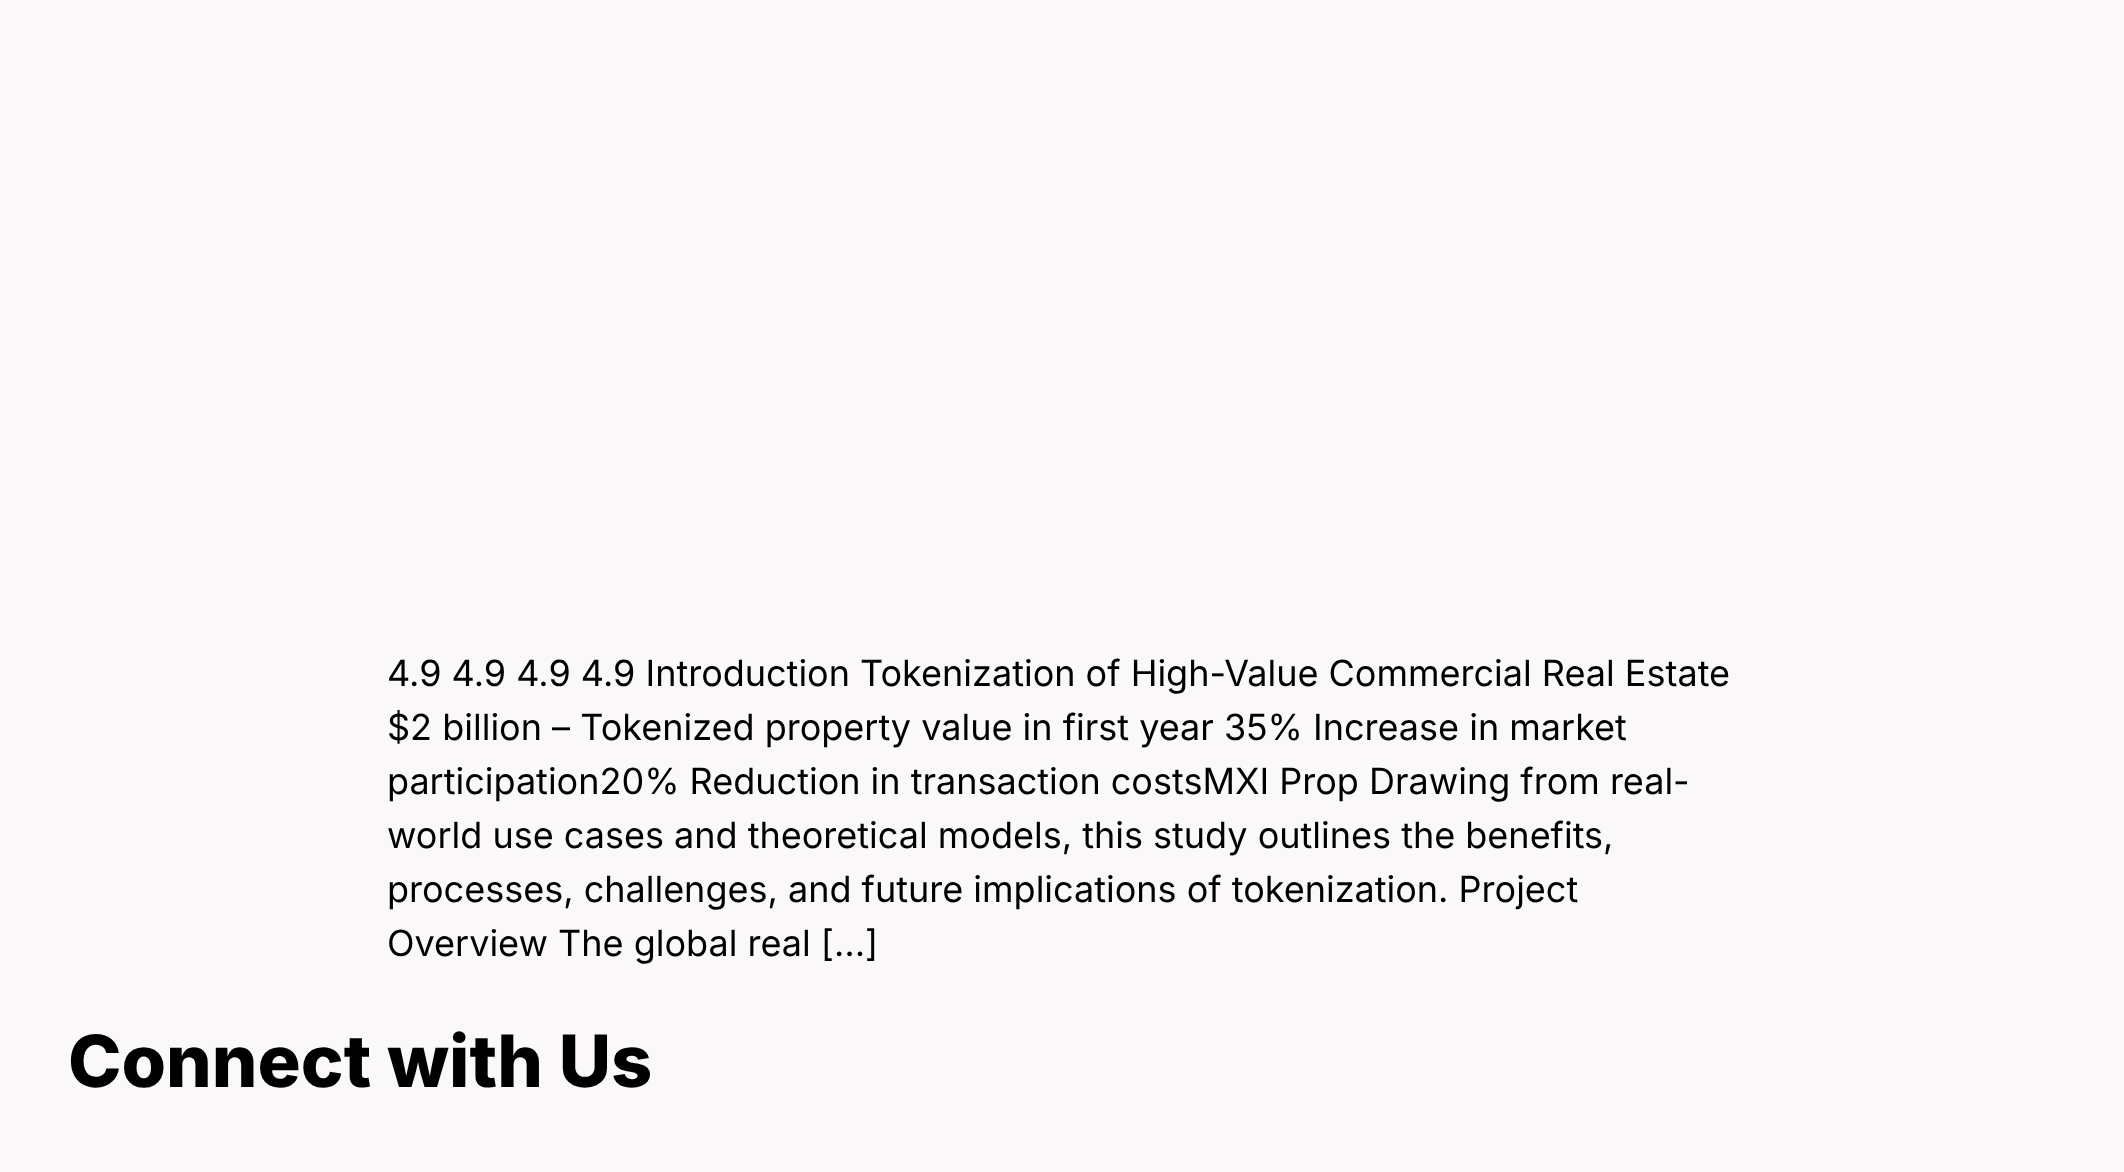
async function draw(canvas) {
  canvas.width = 2124;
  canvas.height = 1172;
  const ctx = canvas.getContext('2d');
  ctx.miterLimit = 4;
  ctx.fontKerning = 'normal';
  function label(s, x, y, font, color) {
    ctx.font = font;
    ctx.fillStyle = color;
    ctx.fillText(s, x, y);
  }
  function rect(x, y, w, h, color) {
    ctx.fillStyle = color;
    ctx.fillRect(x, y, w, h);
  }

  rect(0, 0, 2124, 1172, '#faf8f9');
  label('4.9 4.9 4.9 4.9 Introduction Tokenization of High-Value Commercial Real Estate', 387, 686, '36px Inter', '#000');
  label('$2 billion – Tokenized property value in first year 35% Increase in market', 387, 740, '36px Inter', '#000');
  label('participation20% Reduction in transaction costsMXI Prop Drawing from real-', 387, 794, '36px Inter', '#000');
  label('world use cases and theoretical models, this study outlines the benefits,', 387, 848, '36px Inter', '#000');
  label('processes, challenges, and future implications of tokenization. Project', 387, 902, '36px Inter', '#000');
  label('Overview The global real […]', 387, 956, '36px Inter', '#000');
  label('Connect with Us', 68, 1087, '800 72px Inter', '#000');
}

draw(document.querySelector('canvas'));
